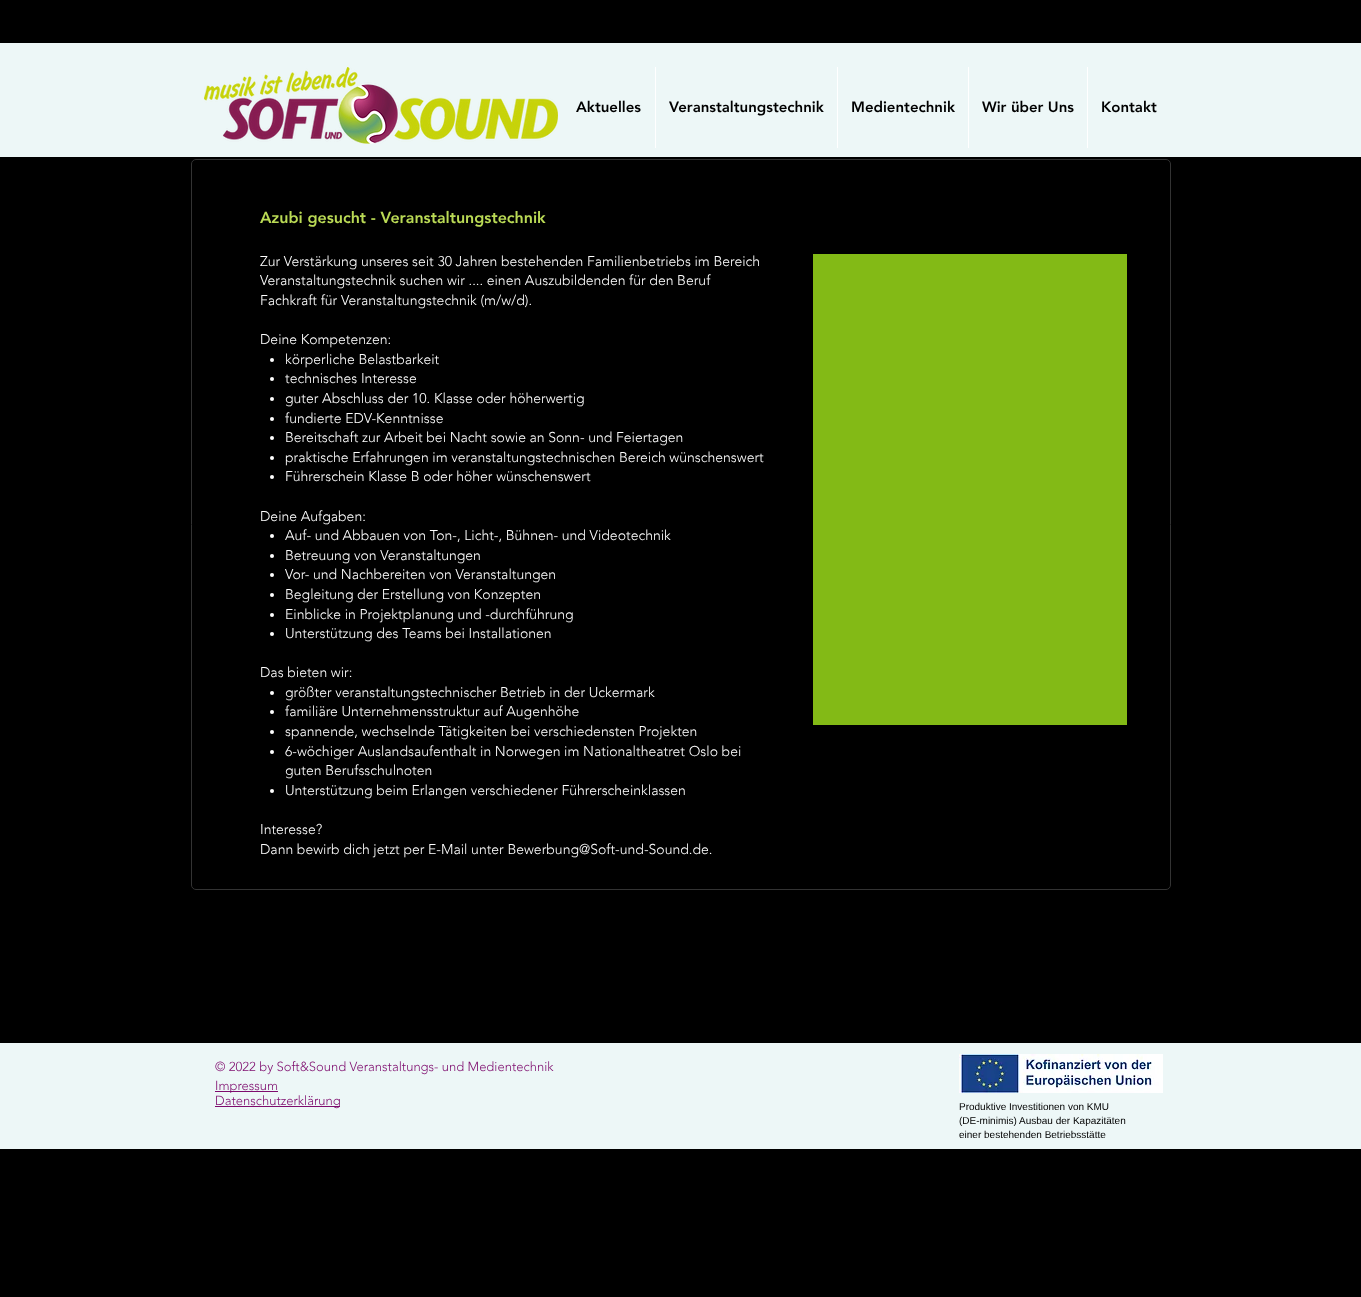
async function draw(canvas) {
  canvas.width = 1361;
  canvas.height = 1297;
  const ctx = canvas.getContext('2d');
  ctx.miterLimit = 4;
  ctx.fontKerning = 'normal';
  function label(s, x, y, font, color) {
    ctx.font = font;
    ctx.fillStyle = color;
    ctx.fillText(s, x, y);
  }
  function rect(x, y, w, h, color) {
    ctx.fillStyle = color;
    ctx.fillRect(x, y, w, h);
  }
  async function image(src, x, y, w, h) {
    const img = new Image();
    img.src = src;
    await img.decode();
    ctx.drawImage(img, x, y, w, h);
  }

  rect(0, 0, 1361, 1297, '#000');
  rect(0, 43, 1361, 114, '#edf7f7');
  await image('assets/img1.png', 204, 67, 354, 77);
  label('Aktuelles', 576, 112, '900 15px "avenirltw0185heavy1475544"', '#000');
  rect(655, 67, 1, 81, '#fff');
  label('Veranstaltungstechnik', 669, 112, '900 15px "avenirltw0185heavy1475544"', '#000');
  rect(837, 67, 1, 81, '#fff');
  label('Medientechnik', 851, 112, '900 15px "avenirltw0185heavy1475544"', '#000');
  rect(968, 67, 1, 81, '#fff');
  label('Wir über Uns', 982, 112, '900 15px "avenirltw0185heavy1475544"', '#000');
  rect(1087, 67, 1, 81, '#fff');
  label('Kontakt', 1101, 112, '900 15px "avenirltw0185heavy1475544"', '#000');
  ctx.beginPath();
  ctx.roundRect(191.5, 159.5, 979, 730, 4.5);
  ctx.strokeStyle = '#333';
  ctx.stroke();
  label('Azubi gesucht - Veranstaltungstechnik', 260, 223, '900 16px "avenirltw0185heavy1475544"', '#bada55');
  label('Zur Verstärkung unseres seit 30 Jahren bestehenden Familienbetriebs im Bereich', 260, 266, '300 14px "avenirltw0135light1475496"', '#fff');
  label('Veranstaltungstechnik suchen wir .... einen Auszubildenden für den Beruf', 260, 285, '300 14px "avenirltw0135light1475496"', '#fff');
  label('Fachkraft für Veranstaltungstechnik (m/w/d).', 260, 305, '300 14px "avenirltw0135light1475496"', '#fff');
  label('Deine Kompetenzen:', 260, 344, '300 14px "avenirltw0135light1475496"', '#fff');
  ctx.beginPath();
  ctx.arc(272, 360, 2, 0, 2 * Math.PI);
  ctx.fill();
  label('körperliche Belastbarkeit', 285, 364, '300 14px "avenirltw0135light1475496"', '#fff');
  ctx.beginPath();
  ctx.arc(272, 379, 2, 0, 2 * Math.PI);
  ctx.fill();
  label('technisches Interesse', 285, 383, '300 14px "avenirltw0135light1475496"', '#fff');
  ctx.beginPath();
  ctx.arc(272, 399, 2, 0, 2 * Math.PI);
  ctx.fill();
  label('guter Abschluss der 10. Klasse oder höherwertig', 285, 403, '300 14px "avenirltw0135light1475496"', '#fff');
  ctx.beginPath();
  ctx.arc(272, 419, 2, 0, 2 * Math.PI);
  ctx.fill();
  label('fundierte EDV-Kenntnisse', 285, 423, '300 14px "avenirltw0135light1475496"', '#fff');
  ctx.beginPath();
  ctx.arc(272, 438, 2, 0, 2 * Math.PI);
  ctx.fill();
  label('Bereitschaft zur Arbeit bei Nacht sowie an Sonn- und Feiertagen', 285, 442, '300 14px "avenirltw0135light1475496"', '#fff');
  ctx.beginPath();
  ctx.arc(272, 458, 2, 0, 2 * Math.PI);
  ctx.fill();
  label('praktische Erfahrungen im veranstaltungstechnischen Bereich wünschenswert', 285, 462, '300 14px "avenirltw0135light1475496"', '#fff');
  ctx.beginPath();
  ctx.arc(272, 477, 2, 0, 2 * Math.PI);
  ctx.fill();
  label('Führerschein Klasse B oder höher wünschenswert', 285, 481, '300 14px "avenirltw0135light1475496"', '#fff');
  label('Deine Aufgaben:', 260, 521, '300 14px "avenirltw0135light1475496"', '#fff');
  ctx.beginPath();
  ctx.arc(272, 536, 2, 0, 2 * Math.PI);
  ctx.fill();
  label('Auf- und Abbauen von Ton-, Licht-, Bühnen- und Videotechnik', 285, 540, '300 14px "avenirltw0135light1475496"', '#fff');
  ctx.beginPath();
  ctx.arc(272, 556, 2, 0, 2 * Math.PI);
  ctx.fill();
  label('Betreuung von Veranstaltungen', 285, 560, '300 14px "avenirltw0135light1475496"', '#fff');
  ctx.beginPath();
  ctx.arc(272, 575, 2, 0, 2 * Math.PI);
  ctx.fill();
  label('Vor- und Nachbereiten von Veranstaltungen', 285, 579, '300 14px "avenirltw0135light1475496"', '#fff');
  ctx.beginPath();
  ctx.arc(272, 595, 2, 0, 2 * Math.PI);
  ctx.fill();
  label('Begleitung der Erstellung von Konzepten', 285, 599, '300 14px "avenirltw0135light1475496"', '#fff');
  ctx.beginPath();
  ctx.arc(272, 615, 2, 0, 2 * Math.PI);
  ctx.fill();
  label('Einblicke in Projektplanung und -durchführung', 285, 619, '300 14px "avenirltw0135light1475496"', '#fff');
  ctx.beginPath();
  ctx.arc(272, 634, 2, 0, 2 * Math.PI);
  ctx.fill();
  label('Unterstützung des Teams bei Installationen', 285, 638, '300 14px "avenirltw0135light1475496"', '#fff');
  label('Das bieten wir:', 260, 677, '300 14px "avenirltw0135light1475496"', '#fff');
  ctx.beginPath();
  ctx.arc(272, 693, 2, 0, 2 * Math.PI);
  ctx.fill();
  label('größter veranstaltungstechnischer Betrieb in der Uckermark', 285, 697, '300 14px "avenirltw0135light1475496"', '#fff');
  ctx.beginPath();
  ctx.arc(272, 712, 2, 0, 2 * Math.PI);
  ctx.fill();
  label('familiäre Unternehmensstruktur auf Augenhöhe', 285, 716, '300 14px "avenirltw0135light1475496"', '#fff');
  ctx.beginPath();
  ctx.arc(272, 732, 2, 0, 2 * Math.PI);
  ctx.fill();
  label('spannende, wechselnde Tätigkeiten bei verschiedensten Projekten', 285, 736, '300 14px "avenirltw0135light1475496"', '#fff');
  ctx.beginPath();
  ctx.arc(272, 752, 2, 0, 2 * Math.PI);
  ctx.fill();
  label('6-wöchiger Auslandsaufenthalt in Norwegen im Nationaltheatret Oslo bei', 285, 756, '300 14px "avenirltw0135light1475496"', '#fff');
  label('guten Berufsschulnoten', 285, 775, '300 14px "avenirltw0135light1475496"', '#fff');
  ctx.beginPath();
  ctx.arc(272, 791, 2, 0, 2 * Math.PI);
  ctx.fill();
  label('Unterstützung beim Erlangen verschiedener Führerscheinklassen', 285, 795, '300 14px "avenirltw0135light1475496"', '#fff');
  label('Interesse?', 260, 834, '300 14px "avenirltw0135light1475496"', '#fff');
  label('Dann bewirb dich jetzt per E-Mail unter Bewerbung@Soft-und-Sound.de.', 260, 854, '300 14px "avenirltw0135light1475496"', '#fff');
  rect(813, 254, 314, 471, '#83ba16');
  rect(0, 1043, 1361, 106, '#edf7f7');
  label('© 2022 by Soft&Sound Veranstaltungs- und Medientechnik', 215, 1071, '300 13px "avenirltw0135light1475496"', '#7e0c6e');
  await image('assets/img2.png', 959, 1054, 204, 39);
  rect(215, 1091, 63, 1, '#7e0c6e');
  label('Impressum', 215, 1090, '300 13px "avenirltw0135light1475496"', '#7e0c6e');
  rect(215, 1106, 125, 1, '#7e0c6e');
  label('Datenschutzerklärung', 215, 1105, '300 13px "avenirltw0135light1475496"', '#7e0c6e');
  label('Produktive Investitionen von KMU', 959, 1110, '10px Liberation Sans', '#000');
  label('(DE-minimis) Ausbau der Kapazitäten', 959, 1124, '10px Liberation Sans', '#000');
  label('einer bestehenden Betriebsstätte', 959, 1138, '10px Liberation Sans', '#000');
}

draw(document.querySelector('canvas'));
